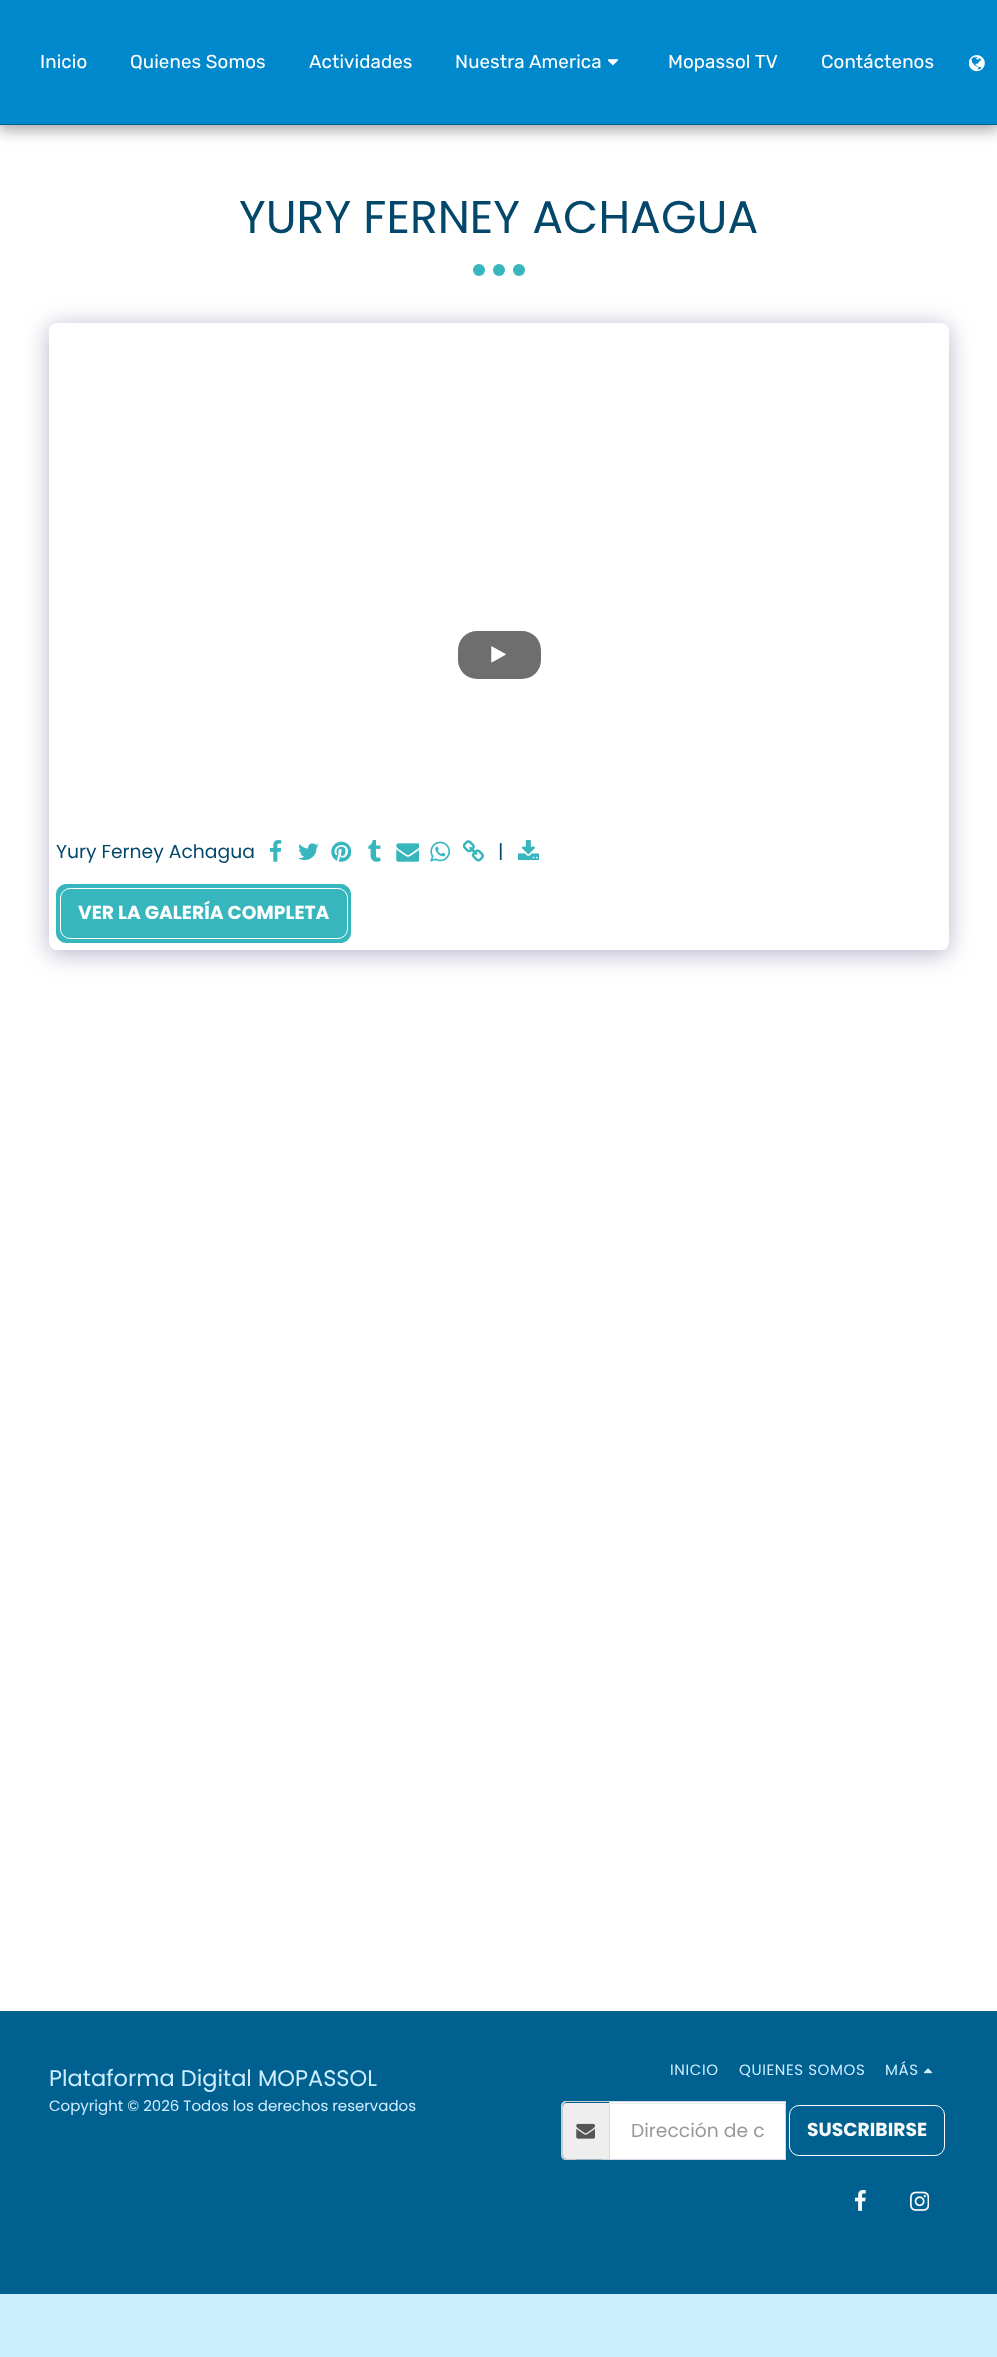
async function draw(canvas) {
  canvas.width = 997;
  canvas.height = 2357;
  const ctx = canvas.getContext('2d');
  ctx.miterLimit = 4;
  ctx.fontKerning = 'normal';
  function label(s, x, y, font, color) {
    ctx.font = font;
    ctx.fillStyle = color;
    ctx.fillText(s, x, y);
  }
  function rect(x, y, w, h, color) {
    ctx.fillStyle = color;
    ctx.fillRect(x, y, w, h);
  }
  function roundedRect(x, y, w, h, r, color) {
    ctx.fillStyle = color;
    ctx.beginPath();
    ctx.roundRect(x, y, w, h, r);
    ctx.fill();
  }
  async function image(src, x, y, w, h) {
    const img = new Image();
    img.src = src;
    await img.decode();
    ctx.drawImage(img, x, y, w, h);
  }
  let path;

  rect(0, 0, 997, 2357, '#cef');
  rect(0, 125, 997, 1886, '#fff');
  ctx.fillStyle = '#00000059';
  ctx.filter = 'blur(7.5px)';
  ctx.beginPath();
  ctx.rect(-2, 0, 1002, 130);
  ctx.fill();
  ctx.filter = 'none';
  rect(0, 0, 997, 124, '#08c');
  rect(0, 124, 997, 1, '#006090');
  ctx.letterSpacing = '0.1px';
  label('Inicio', 40, 68, '18.75px Rubik', '#fff');
  label('Quienes Somos', 130, 68, '18.75px Rubik', '#fff');
  label('Actividades', 309, 68, '18.75px Rubik', '#fff');
  label('Nuestra America', 455, 68, '18.75px Rubik', '#fff');
  await image('assets/img1.png', 608, 59, 10, 7);
  label('Mopassol TV', 668, 68, '18.75px Rubik', '#fff');
  label('Contáctenos', 821, 68, '18.75px Rubik', '#fff');
  await image('assets/img2.png', 969, 55, 16, 17);
  ctx.letterSpacing = '0px';
  label('YURY FERNEY ACHAGUA', 239, 233, '45.75px Poppins', '#03486a');
  ctx.fillStyle = '#37b6bd';
  ctx.beginPath();
  ctx.arc(479, 270, 6, 0, 2 * Math.PI);
  ctx.fill();
  ctx.beginPath();
  ctx.arc(499, 270, 6, 0, 2 * Math.PI);
  ctx.fill();
  ctx.beginPath();
  ctx.arc(519, 270, 6, 0, 2 * Math.PI);
  ctx.fill();
  ctx.fillStyle = '#4d3f7a66';
  ctx.filter = 'blur(12.5px)';
  ctx.beginPath();
  ctx.roundRect(49, 326, 900, 628, 8);
  ctx.fill();
  ctx.filter = 'none';
  roundedRect(49, 323, 900, 627, 8, '#fff');
  roundedRect(458, 631, 83, 48, 19, '#6e6e6e');
  await image('assets/img3.png', 491, 646, 15, 17);
  label('Yury Ferney Achagua', 56, 858, '18.75px Poppins', '#03486a');
  await image('assets/img4.png', 270, 840, 12, 22);
  await image('assets/img5.png', 298, 843, 21, 18);
  await image('assets/img6.png', 331, 841, 20, 21);
  await image('assets/img7.png', 368, 840, 13, 22);
  await image('assets/img8.png', 396, 843, 23, 19);
  await image('assets/img9.png', 430, 841, 20, 21);
  await image('assets/img10.png', 463, 840, 21, 22);
  label('|', 498, 858, '18.75px Poppins', '#03486a');
  await image('assets/img11.png', 518, 840, 21, 21);
  ctx.fillStyle = '#37b6bd';
  ctx.beginPath();
  ctx.roundRect(56.5, 884.5, 294, 58, 9.5);
  ctx.fill();
  ctx.strokeStyle = '#37b6bd';
  ctx.stroke();
  ctx.beginPath();
  ctx.roundRect(60.5, 888.5, 287, 50, 9.5);
  ctx.strokeStyle = '#fff';
  ctx.stroke();
  label('VER LA GALERÍA COMPLETA', 78, 919, 'bold 18.75px Poppins', '#fff');
  rect(0, 2011, 997, 283, '#006090');
  label('Plataforma Digital MOPASSOL', 49, 2086, '22.5px Poppins', '#cef');
  label('Copyright © 2026 Todos los derechos reservados', 49, 2111, '15px Poppins', '#cef');
  ctx.letterSpacing = '0.6px';
  label('INICIO', 670, 2075, '15px Poppins', '#cef');
  label('QUIENES SOMOS', 739, 2075, '15px Poppins', '#cef');
  label('MÁS', 885, 2075, '15px Poppins', '#cef');
  await image('assets/img12.png', 924, 2068, 9, 6);
  ctx.fillStyle = '#eee';
  ctx.beginPath();
  ctx.roundRect(563, 2103, 46, 56, [4, 0, 0, 4]);
  ctx.fill();
  ctx.fillStyle = '#ccc';
  path = new Path2D('M566 2101H609V2160H566C563 2160 561 2158 561 2155V2106C561 2103 563 2101 566 2101ZM566 2102H609V2159C603 2159 567 2160 564 2158L563 2156V2105L564 2104Z');
  ctx.fill(path, 'evenodd');
  await image('assets/img13.png', 576, 2123, 19, 16);
  rect(610, 2102, 175, 57, '#fff');
  rect(610, 2103, 175, 1, '#ececec');
  ctx.strokeStyle = '#d4d7e5';
  ctx.strokeRect(609.5, 2101.5, 176, 58);
  ctx.letterSpacing = '0px';
  label('Dirección de c', 631, 2137, '18.75px Poppins', '#999');
  ctx.beginPath();
  ctx.roundRect(789.5, 2105.5, 155, 50, 9.5);
  ctx.strokeStyle = '#fff';
  ctx.stroke();
  label('SUSCRIBIRSE', 807, 2136, 'bold 18.75px Poppins', '#f9f9f9');
  await image('assets/img14.png', 854, 2190, 12, 21);
  await image('assets/img15.png', 910, 2191, 19, 20);
}

draw(document.querySelector('canvas'));
